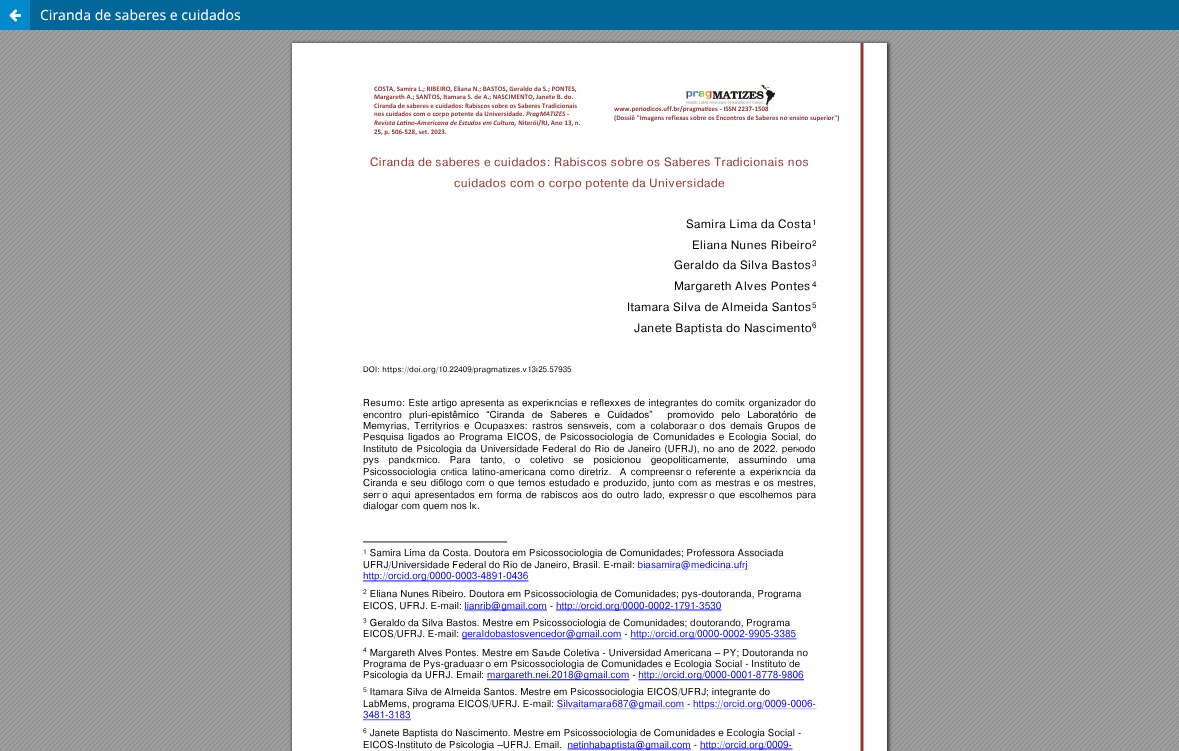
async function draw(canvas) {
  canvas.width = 1179;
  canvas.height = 751;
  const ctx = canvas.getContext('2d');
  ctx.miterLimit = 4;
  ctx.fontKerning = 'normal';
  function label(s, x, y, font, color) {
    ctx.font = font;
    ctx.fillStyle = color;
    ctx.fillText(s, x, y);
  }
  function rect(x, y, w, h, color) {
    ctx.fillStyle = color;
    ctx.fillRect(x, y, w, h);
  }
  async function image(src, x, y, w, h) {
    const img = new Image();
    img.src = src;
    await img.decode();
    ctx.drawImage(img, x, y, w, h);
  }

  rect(0, 0, 1179, 751, '#fff');
  rect(30, 0, 1149, 30, '#006798');
  rect(0, 0, 30, 30, '#008acb');
  await image('assets/img1.png', 9, 9, 12, 13);
  label('Ciranda de saberes e cuidados', 40, 20, '14px Noto Sans', '#fff');
  await image('assets/img2.png', 0, 30, 1179, 721);
}

draw(document.querySelector('canvas'));
